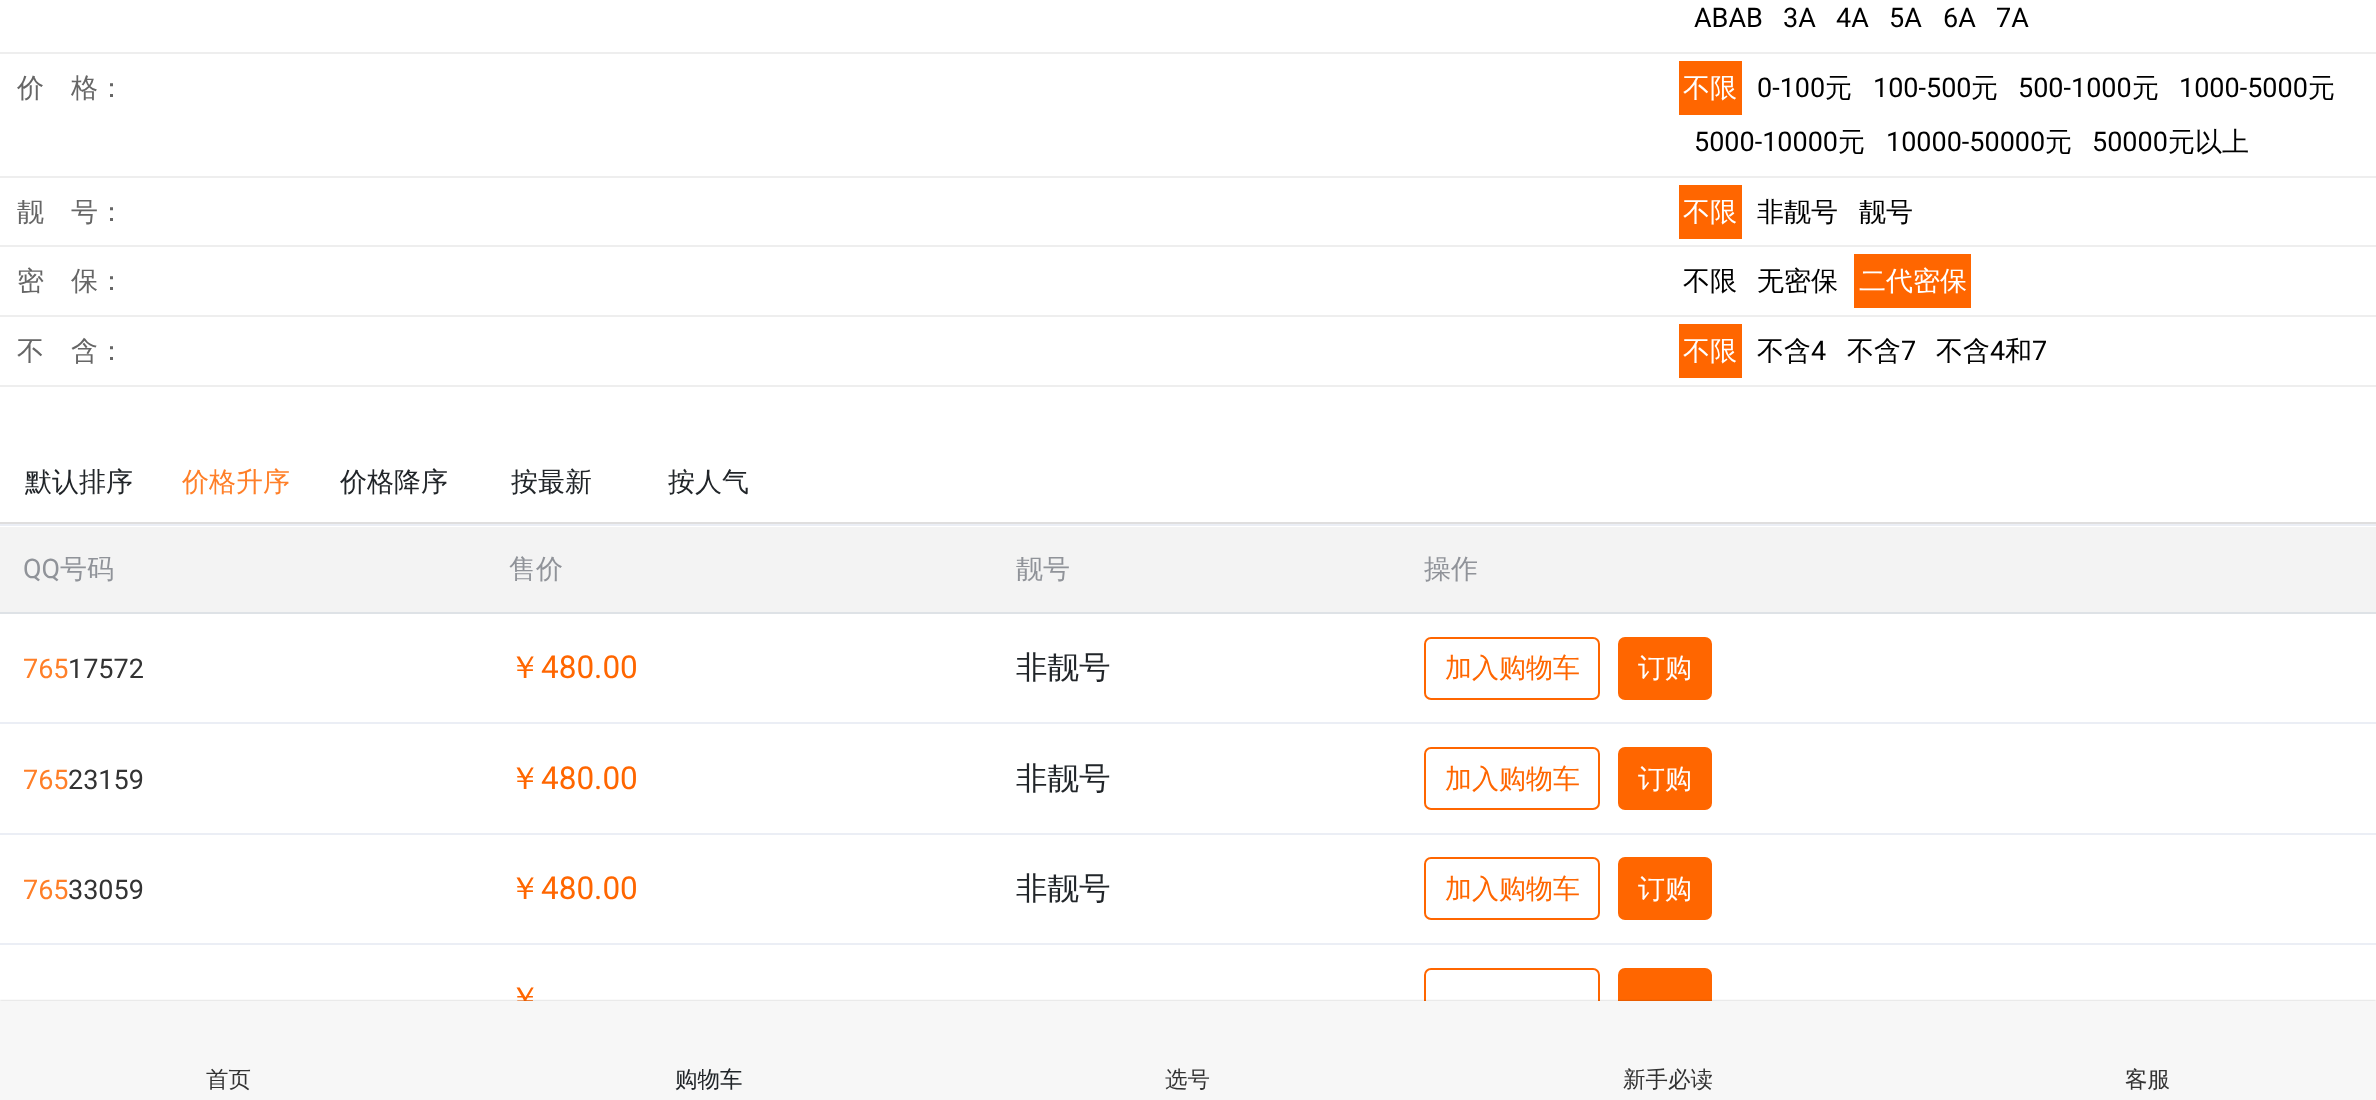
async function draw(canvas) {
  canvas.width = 2376;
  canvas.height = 1100;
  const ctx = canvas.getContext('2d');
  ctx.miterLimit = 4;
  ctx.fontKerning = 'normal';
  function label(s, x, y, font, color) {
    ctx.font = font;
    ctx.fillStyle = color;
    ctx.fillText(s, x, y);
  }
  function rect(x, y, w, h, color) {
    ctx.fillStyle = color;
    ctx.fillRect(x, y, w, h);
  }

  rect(0, 0, 2376, 1100, '#fff');
  rect(0, 52, 2376, 2, '#eee');
  label('ABAB', 1694, 27, '27px Roboto', '#000');
  label('3A', 1783, 27, '27px Roboto', '#000');
  label('4A', 1836, 27, '27px Roboto', '#000');
  label('5A', 1889, 27, '27px Roboto', '#000');
  label('6A', 1943, 27, '27px Roboto', '#000');
  label('7A', 1996, 27, '27px Roboto', '#000');
  rect(0, 176, 2376, 2, '#eee');
  label('价', 17, 97, '500 27px WenQuanYi Zen Hei', '#666');
  label('格：', 71, 97, '500 27px WenQuanYi Zen Hei', '#666');
  rect(1679, 61, 63, 54, '#f60');
  label('不限', 1683, 97, '500 27px WenQuanYi Zen Hei', '#fff');
  label('0-100', 1757, 97, '27px Roboto', '#000');
  label('元', 1825, 97, '500 27px WenQuanYi Zen Hei', '#000');
  label('100-500', 1873, 97, '27px Roboto', '#000');
  label('元', 1971, 97, '500 27px WenQuanYi Zen Hei', '#000');
  label('500-1000', 2018, 97, '27px Roboto', '#000');
  label('元', 2132, 97, '500 27px WenQuanYi Zen Hei', '#000');
  label('1000-5000', 2179, 97, '27px Roboto', '#000');
  label('元', 2308, 97, '500 27px WenQuanYi Zen Hei', '#000');
  label('5000-10000', 1694, 151, '27px Roboto', '#000');
  label('元', 1838, 151, '500 27px WenQuanYi Zen Hei', '#000');
  label('10000-50000', 1886, 151, '27px Roboto', '#000');
  label('元', 2045, 151, '500 27px WenQuanYi Zen Hei', '#000');
  label('50000', 2092, 151, '27px Roboto', '#000');
  label('元以上', 2168, 151, '500 27px WenQuanYi Zen Hei', '#000');
  rect(0, 245, 2376, 2, '#eee');
  label('靓', 17, 221, '500 27px WenQuanYi Zen Hei', '#666');
  label('号：', 71, 221, '500 27px WenQuanYi Zen Hei', '#666');
  rect(1679, 185, 63, 54, '#f60');
  label('不限', 1683, 221, '500 27px WenQuanYi Zen Hei', '#fff');
  label('非靓号', 1757, 221, '500 27px WenQuanYi Zen Hei', '#000');
  label('靓号', 1859, 221, '500 27px WenQuanYi Zen Hei', '#000');
  rect(0, 315, 2376, 2, '#eee');
  label('密', 17, 290, '500 27px WenQuanYi Zen Hei', '#666');
  label('保：', 71, 290, '500 27px WenQuanYi Zen Hei', '#666');
  label('不限', 1683, 290, '500 27px WenQuanYi Zen Hei', '#000');
  label('无密保', 1757, 290, '500 27px WenQuanYi Zen Hei', '#000');
  rect(1854, 254, 117, 54, '#f60');
  label('二代密保', 1859, 290, '500 27px WenQuanYi Zen Hei', '#fff');
  rect(0, 385, 2376, 2, '#eee');
  label('不', 17, 360, '500 27px WenQuanYi Zen Hei', '#666');
  label('含：', 71, 360, '500 27px WenQuanYi Zen Hei', '#666');
  rect(1679, 324, 63, 54, '#f60');
  label('不限', 1683, 360, '500 27px WenQuanYi Zen Hei', '#fff');
  label('不含', 1757, 360, '500 27px WenQuanYi Zen Hei', '#000');
  label('4', 1811, 360, '27px Roboto', '#000');
  label('不含', 1847, 360, '500 27px WenQuanYi Zen Hei', '#000');
  label('7', 1901, 360, '27px Roboto', '#000');
  label('不含', 1936, 360, '500 27px WenQuanYi Zen Hei', '#000');
  label('4', 1990, 360, '27px Roboto', '#000');
  label('和', 2005, 360, '500 27px WenQuanYi Zen Hei', '#000');
  label('7', 2032, 360, '27px Roboto', '#000');
  rect(0, 522, 2376, 2, '#dfdede');
  label('默认排序', 25, 491, '500 27px WenQuanYi Zen Hei', '#212529');
  label('价格升序', 182, 491, '500 27px WenQuanYi Zen Hei', '#ff7f28');
  label('价格降序', 340, 491, '500 27px WenQuanYi Zen Hei', '#212529');
  label('按最新', 511, 491, '500 27px WenQuanYi Zen Hei', '#212529');
  label('按人气', 668, 491, '500 27px WenQuanYi Zen Hei', '#212529');
  rect(0, 527, 2376, 85, '#f3f3f3');
  label('QQ', 23, 578, '27px Roboto', '#909399');
  label('号码', 60, 578, '500 27px WenQuanYi Zen Hei', '#909399');
  label('售价', 509, 578, '500 27px WenQuanYi Zen Hei', '#909399');
  label('靓号', 1016, 578, '500 27px WenQuanYi Zen Hei', '#909399');
  rect(0, 524, 2376, 2, '#ebeef5');
  rect(0, 612, 2376, 2, '#dee2e6');
  label('操作', 1424, 578, '500 27px WenQuanYi Zen Hei', '#909399');
  label('765', 23, 678, '27px Roboto', '#ff7f28');
  label('17572', 68, 678, '27px Roboto', '#333');
  label('￥', 509, 678, '500 31.5px WenQuanYi Zen Hei', '#f60');
  label('480.00', 541, 678, '31.5px Roboto', '#f60');
  label('非靓号', 1016, 678, '500 31.5px WenQuanYi Zen Hei', '#212529');
  ctx.beginPath();
  ctx.roundRect(1425, 638, 174, 61, 6);
  ctx.strokeStyle = '#f60';
  ctx.lineWidth = 2;
  ctx.stroke();
  label('加入购物车', 1445, 677, '500 27px WenQuanYi Zen Hei', '#f60');
  ctx.beginPath();
  ctx.roundRect(1619, 638, 92, 61, 6);
  ctx.fill();
  ctx.stroke();
  label('订购', 1638, 677, '500 27px WenQuanYi Zen Hei', '#fff');
  label('765', 23, 789, '27px Roboto', '#ff7f28');
  label('23159', 68, 789, '27px Roboto', '#333');
  label('￥', 509, 789, '500 31.5px WenQuanYi Zen Hei', '#f60');
  label('480.00', 541, 789, '31.5px Roboto', '#f60');
  label('非靓号', 1016, 789, '500 31.5px WenQuanYi Zen Hei', '#212529');
  rect(0, 722, 2376, 2, '#ebeef5');
  ctx.beginPath();
  ctx.roundRect(1425, 748, 174, 61, 6);
  ctx.stroke();
  label('加入购物车', 1445, 788, '500 27px WenQuanYi Zen Hei', '#f60');
  ctx.beginPath();
  ctx.roundRect(1619, 748, 92, 61, 6);
  ctx.fill();
  ctx.stroke();
  label('订购', 1638, 788, '500 27px WenQuanYi Zen Hei', '#fff');
  label('765', 23, 899, '27px Roboto', '#ff7f28');
  label('33059', 68, 899, '27px Roboto', '#333');
  label('￥', 509, 899, '500 31.5px WenQuanYi Zen Hei', '#f60');
  label('480.00', 541, 899, '31.5px Roboto', '#f60');
  label('非靓号', 1016, 899, '500 31.5px WenQuanYi Zen Hei', '#212529');
  rect(0, 833, 2376, 2, '#ebeef5');
  ctx.beginPath();
  ctx.roundRect(1425, 858, 174, 61, 6);
  ctx.stroke();
  label('加入购物车', 1445, 898, '500 27px WenQuanYi Zen Hei', '#f60');
  ctx.beginPath();
  ctx.roundRect(1619, 858, 92, 61, 6);
  ctx.fill();
  ctx.stroke();
  label('订购', 1638, 898, '500 27px WenQuanYi Zen Hei', '#fff');
  rect(0, 943, 2376, 2, '#ebeef5');
  ctx.beginPath();
  ctx.roundRect(1425, 969, 174, 61, 6);
  ctx.stroke();
  ctx.fillStyle = '#f60';
  ctx.beginPath();
  ctx.roundRect(1619, 969, 92, 61, 6);
  ctx.fill();
  ctx.stroke();
  label('￥', 509, 1009, '500 31.5px WenQuanYi Zen Hei', '#f60');
  ctx.fillStyle = '#00000040';
  ctx.filter = 'blur(1px)';
  ctx.beginPath();
  ctx.rect(0, 1001, 2376, 99);
  ctx.fill();
  ctx.filter = 'none';
  rect(0, 1001, 2376, 99, '#f7f7f7');
  label('首页', 206, 1087, '500 22.5px WenQuanYi Zen Hei', '#333');
  label('购物车', 675, 1087, '500 22.5px WenQuanYi Zen Hei', '#212529');
  label('选号', 1165, 1087, '500 22.5px WenQuanYi Zen Hei', '#333');
  label('新手必读', 1623, 1087, '500 22.5px WenQuanYi Zen Hei', '#333');
  label('客服', 2125, 1087, '500 22.5px WenQuanYi Zen Hei', '#333');
}

draw(document.querySelector('canvas'));
